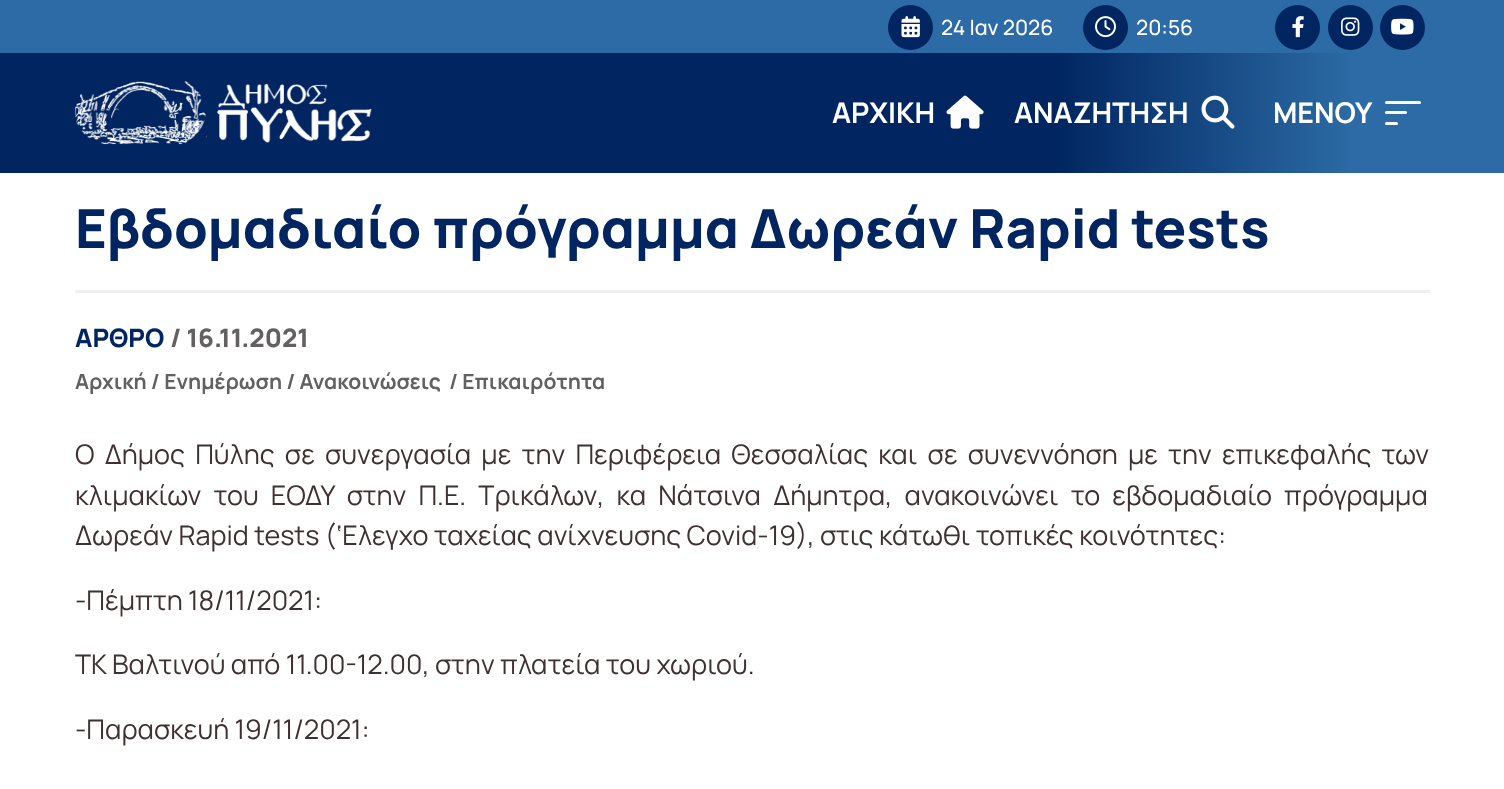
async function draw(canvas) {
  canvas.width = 1504;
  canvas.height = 789;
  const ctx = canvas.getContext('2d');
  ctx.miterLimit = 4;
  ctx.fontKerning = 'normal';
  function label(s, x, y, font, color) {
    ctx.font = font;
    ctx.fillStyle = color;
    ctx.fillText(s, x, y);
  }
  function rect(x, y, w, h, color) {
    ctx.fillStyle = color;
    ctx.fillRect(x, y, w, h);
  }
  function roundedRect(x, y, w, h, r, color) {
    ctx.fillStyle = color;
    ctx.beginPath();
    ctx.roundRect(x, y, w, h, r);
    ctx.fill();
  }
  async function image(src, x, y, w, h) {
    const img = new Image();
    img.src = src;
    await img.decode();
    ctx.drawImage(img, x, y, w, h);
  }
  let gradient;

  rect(0, 0, 1504, 789, '#fff');
  rect(0, 0, 1504, 53, '#2c6ba5');
  ctx.fillStyle = '#002560';
  ctx.beginPath();
  ctx.arc(910.5, 27.5, 22.5, 0, 2 * Math.PI);
  ctx.fill();
  await image('assets/img1.png', 901, 16, 19, 22);
  label('24 Ιαν 2026', 941, 35, '500 21px Manrope', '#fff');
  ctx.fillStyle = '#002560';
  ctx.beginPath();
  ctx.arc(1105.5, 27.5, 22.5, 0, 2 * Math.PI);
  ctx.fill();
  await image('assets/img2.png', 1095, 16, 21, 22);
  label('20:56', 1136, 35, '500 21px Manrope', '#fff');
  ctx.fillStyle = '#002560';
  ctx.beginPath();
  ctx.arc(1297.5, 27.5, 22.5, 0, 2 * Math.PI);
  ctx.fill();
  await image('assets/img3.png', 1292, 16, 12, 22);
  ctx.beginPath();
  ctx.arc(1350.5, 27.5, 22.5, 0, 2 * Math.PI);
  ctx.fill();
  await image('assets/img4.png', 1341, 17, 19, 19);
  ctx.beginPath();
  ctx.arc(1402.5, 27.5, 22.5, 0, 2 * Math.PI);
  ctx.fill();
  await image('assets/img5.png', 1391, 18, 23, 17);
  gradient = ctx.createLinearGradient(0, 113, 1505, 112);
  gradient.addColorStop(0, '#002560');
  gradient.addColorStop(0.7, '#002560');
  gradient.addColorStop(0.9, '#2c6ba5');
  gradient.addColorStop(1, '#2c6ba5');
  ctx.fillStyle = gradient;
  ctx.fillRect(0, 53, 1504, 120);
  await image('assets/img6.png', 75, 81, 297, 64);
  label('ΑΡΧΙΚΗ', 832, 123, 'bold 28.5px Manrope', '#fff');
  await image('assets/img7.png', 946, 95, 38, 34);
  label('AΝΑΖΗΤΗΣΗ', 1014, 123, 'bold 28.5px Manrope', '#fff');
  await image('assets/img8.png', 1201, 95, 34, 34);
  label('MENOY', 1273, 123, 'bold 28.5px Manrope', '#fff');
  roundedRect(1385, 101, 36, 3, 1.5, '#fff');
  roundedRect(1385, 111, 22, 3, 1.5, '#fff');
  roundedRect(1385, 122, 13, 3, 1.5, '#fff');
  rect(75, 290, 1355, 3, '#f0f0f0');
  label('Εβδομαδιαίο πρόγραμμα Δωρεάν Rapid tests', 75, 248, '800 54px Manrope', '#002560');
  label('ΑΡΘΡΟ', 75, 347, '800 25.5px Manrope', '#002560');
  label('/ 16.11.2021', 170, 347, '800 25.5px Manrope', '#626060');
  label('Αρχική / Ενημέρωση / Ανακοινώσεις', 75, 389, 'bold 21px Manrope', '#626060');
  label('/ Επικαιρότητα', 449, 389, 'bold 21px Manrope', '#626060');
  ctx.wordSpacing = '4.75px';
  label('Ο Δήμος Πύλης σε συνεργασία με την Περιφέρεια Θεσσαλίας και σε συνεννόηση με την επικεφαλής των', 75, 464, '27px Manrope', '#3f3132');
  ctx.wordSpacing = '6.75px';
  label('κλιμακίων του ΕΟΔΥ στην Π.Ε. Τρικάλων, κα Νάτσινα Δήμητρα, ανακοινώνει το εβδομαδιαίο πρόγραμμα', 75, 505, '27px Manrope', '#3f3132');
  ctx.wordSpacing = '0px';
  label('Δωρεάν Rapid tests (‘Eλεγχο ταχείας ανίχνευσης Covid-19), στις κάτωθι τοπικές κοινότητες:', 75, 545, '27px Manrope', '#3f3132');
  label('-Πέμπτη 18/11/2021:', 75, 610, '27px Manrope', '#3f3132');
  label('ΤΚ Bαλτινού από 11.00-12.00, στην πλατεία του χωριού.', 75, 674, '27px Manrope', '#3f3132');
  label('-Παρασκευή 19/11/2021:', 75, 739, '27px Manrope', '#3f3132');
}

draw(document.querySelector('canvas'));
